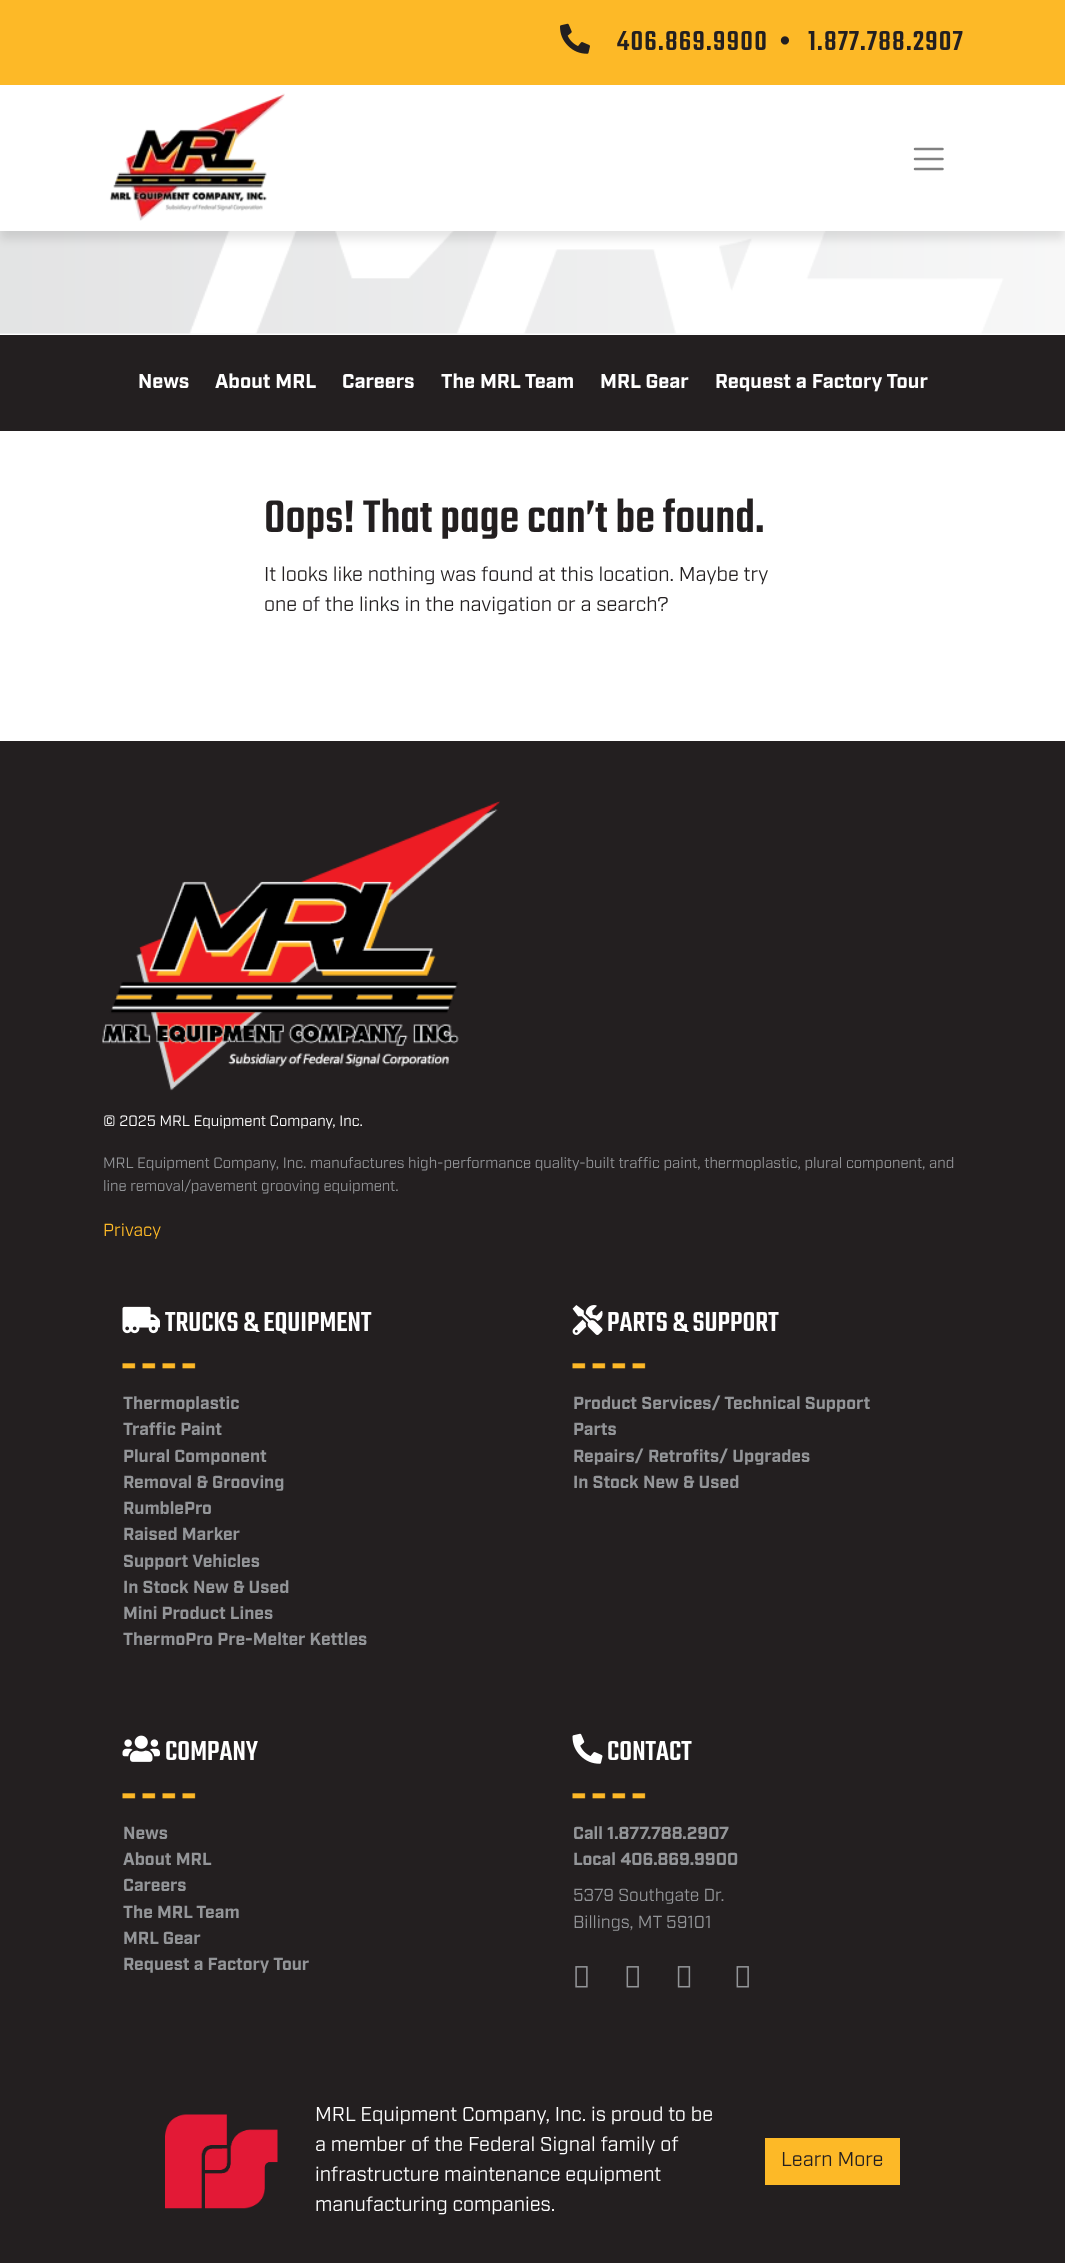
async function draw(canvas) {
  canvas.width = 1065;
  canvas.height = 2263;
  const ctx = canvas.getContext('2d');
  ctx.miterLimit = 4;
  ctx.fontKerning = 'normal';
  function label(s, x, y, font, color) {
    ctx.font = font;
    ctx.fillStyle = color;
    ctx.fillText(s, x, y);
  }
  function rect(x, y, w, h, color) {
    ctx.fillStyle = color;
    ctx.fillRect(x, y, w, h);
  }
  async function image(src, x, y, w, h) {
    const img = new Image();
    img.src = src;
    await img.decode();
    ctx.drawImage(img, x, y, w, h);
  }
  let path;

  rect(0, 0, 1065, 2263, '#fff');
  await image('assets/img3.png', 0, 231, 1065, 103);
  ctx.fillStyle = '#0000001a';
  ctx.filter = 'blur(5px)';
  ctx.beginPath();
  ctx.rect(0, 8, 1065, 231);
  ctx.fill();
  ctx.filter = 'none';
  rect(0, 85, 1065, 146, '#fff');
  rect(0, 0, 1065, 85, '#fdb927');
  await image('assets/img1.png', 560, 23, 30, 31);
  ctx.letterSpacing = '1.25px';
  label('406.869.9900', 617, 50, '300 30px Teko', '#231f20');
  label('•', 779, 50, '300 30px Teko', '#231f20');
  label('1.877.788.2907', 808, 50, '300 30px Teko', '#231f20');
  await image('assets/img2.png', 109, 93, 176, 128);
  path = new Path2D('M915 149H942.5M915 159H942.5M915 169H942.5');
  ctx.strokeStyle = '#808080';
  ctx.lineWidth = 2.5;
  ctx.lineCap = 'round';
  ctx.stroke(path);
  rect(0, 335, 1065, 96, '#231f20');
  ctx.letterSpacing = '0px';
  label('News', 138, 388, 'bold 20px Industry', '#fff');
  label('About MRL', 215, 388, 'bold 20px Industry', '#fff');
  label('Careers', 342, 388, 'bold 20px Industry', '#fff');
  label('The MRL Team', 441, 388, 'bold 20px Industry', '#fff');
  label('MRL Gear', 600, 388, 'bold 20px Industry', '#fff');
  label('Request a Factory Tour', 715, 388, 'bold 20px Industry', '#fff');
  label('Oops! That page can’t be found.', 264, 532, '300 50px Teko', '#231f20');
  label('It looks like nothing was found at this location. Maybe try', 264, 581, '20px Industry', '#231f20');
  label('one of the links in the navigation or a search?', 264, 611, '20px Industry', '#231f20');
  rect(0, 741, 1065, 1522, '#231f20');
  await image('assets/img4.png', 102, 800, 398, 291);
  label('© 2025 MRL Equipment Company, Inc.', 103, 1126, '15px Industry', '#fff');
  label('MRL Equipment Company, Inc. manufactures high-performance quality-built traffic paint, thermoplastic, plural component, and', 103, 1168, '15px Industry', '#939598');
  label('line removal/pavement grooving equipment.', 103, 1191, '15px Industry', '#939598');
  label('Privacy', 103, 1236, '17.5px Industry', '#fdb927');
  await image('assets/img5.png', 122, 1306, 38, 28);
  label('TRUCKS & EQUIPMENT', 165, 1331, '300 30px Teko', '#fff');
  await image('assets/img6.png', 122, 1363, 74, 6);
  label('Thermoplastic', 123, 1409, 'bold 17.5px Industry', '#939598');
  label('Traffic Paint', 123, 1435, 'bold 17.5px Industry', '#939598');
  label('Plural Component', 123, 1462, 'bold 17.5px Industry', '#939598');
  label('Removal & Grooving', 123, 1488, 'bold 17.5px Industry', '#939598');
  label('RumblePro', 123, 1514, 'bold 17.5px Industry', '#939598');
  label('Raised Marker', 123, 1540, 'bold 17.5px Industry', '#939598');
  label('Support Vehicles', 123, 1567, 'bold 17.5px Industry', '#939598');
  label('In Stock New & Used', 123, 1593, 'bold 17.5px Industry', '#939598');
  label('Mini Product Lines', 123, 1619, 'bold 17.5px Industry', '#939598');
  label('ThermoPro Pre-Melter Kettles', 123, 1645, 'bold 17.5px Industry', '#939598');
  await image('assets/img7.png', 572, 1305, 31, 30);
  label('PARTS & SUPPORT', 607, 1331, '300 30px Teko', '#fff');
  await image('assets/img8.png', 572, 1363, 74, 6);
  label('Product Services/ Technical Support', 573, 1409, 'bold 17.5px Industry', '#939598');
  label('Parts', 573, 1435, 'bold 17.5px Industry', '#939598');
  label('Repairs/ Retrofits/ Upgrades', 573, 1462, 'bold 17.5px Industry', '#939598');
  label('In Stock New & Used', 573, 1488, 'bold 17.5px Industry', '#939598');
  await image('assets/img9.png', 122, 1735, 38, 27);
  label('COMPANY', 165, 1760, '300 30px Teko', '#fff');
  await image('assets/img6.png', 122, 1793, 74, 6);
  label('News', 123, 1839, 'bold 17.5px Industry', '#939598');
  label('About MRL', 123, 1865, 'bold 17.5px Industry', '#939598');
  label('Careers', 123, 1891, 'bold 17.5px Industry', '#939598');
  label('The MRL Team', 123, 1918, 'bold 17.5px Industry', '#939598');
  label('MRL Gear', 123, 1944, 'bold 17.5px Industry', '#939598');
  label('Request a Factory Tour', 123, 1970, 'bold 17.5px Industry', '#939598');
  await image('assets/img10.png', 572, 1733, 31, 31);
  label('CONTACT', 607, 1760, '300 30px Teko', '#fff');
  await image('assets/img8.png', 572, 1793, 74, 6);
  label('Call 1.877.788.2907', 573, 1839, 'bold 17.5px Industry', '#939598');
  label('Local 406.869.9900', 573, 1865, 'bold 17.5px Industry', '#939598');
  label('5379 Southgate Dr.', 573, 1901, '17.5px Industry', '#939598');
  label('Billings, MT 59101', 573, 1928, '17.5px Industry', '#939598');
  await image('assets/img11.png', 575, 1966, 13, 22);
  await image('assets/img12.png', 626, 1966, 13, 22);
  await image('assets/img13.png', 677, 1966, 14, 22);
  await image('assets/img12.png', 736, 1966, 13, 22);
  await image('assets/img14.png', 165, 2114, 113, 95);
  label('MRL Equipment Company, Inc. is proud to be', 315, 2121, '20px Industry', '#fff');
  label('a member of the Federal Signal family of', 315, 2151, '20px Industry', '#fff');
  label('infrastructure maintenance equipment', 315, 2181, '20px Industry', '#fff');
  label('manufacturing companies.', 315, 2211, '20px Industry', '#fff');
  rect(765, 2138, 135, 47, '#fdb927');
  label('Learn More', 781, 2166, '20px Industry', '#231f20');
}

draw(document.querySelector('canvas'));
